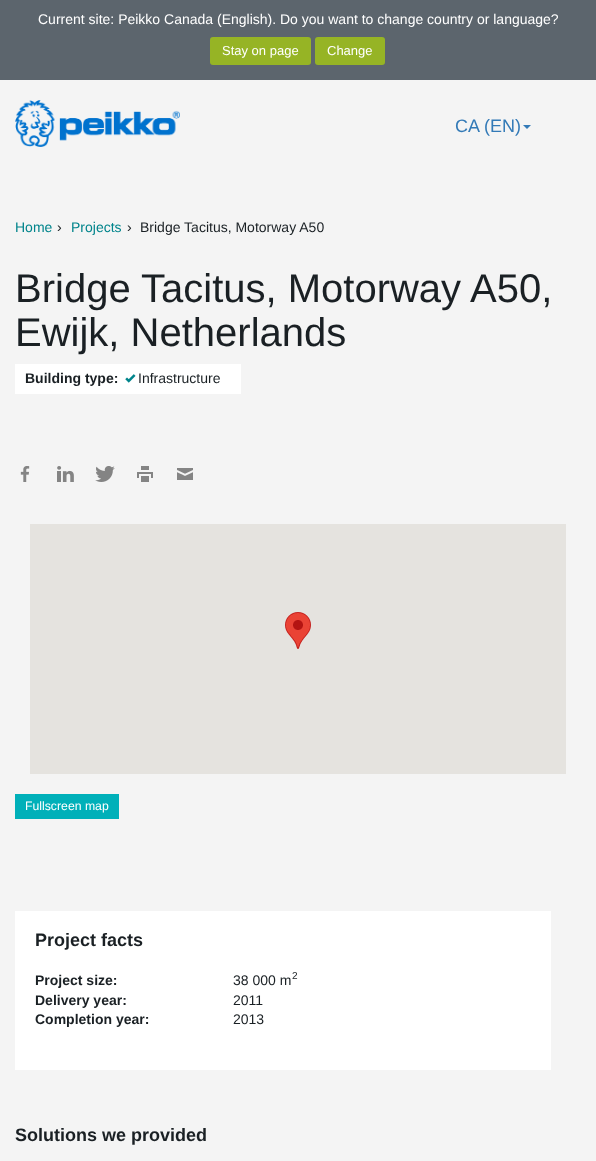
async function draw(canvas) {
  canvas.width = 596;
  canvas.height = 1161;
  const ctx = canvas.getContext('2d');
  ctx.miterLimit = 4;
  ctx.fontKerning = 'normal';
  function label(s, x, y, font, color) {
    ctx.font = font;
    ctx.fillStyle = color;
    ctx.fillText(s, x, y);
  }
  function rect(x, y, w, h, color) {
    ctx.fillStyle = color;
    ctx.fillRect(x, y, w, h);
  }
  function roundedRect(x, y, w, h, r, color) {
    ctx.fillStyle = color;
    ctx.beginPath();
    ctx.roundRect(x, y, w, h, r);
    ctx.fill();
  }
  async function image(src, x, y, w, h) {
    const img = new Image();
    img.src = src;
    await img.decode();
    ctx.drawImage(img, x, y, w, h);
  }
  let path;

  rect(0, 0, 596, 1161, '#f4f4f4');
  rect(0, 0, 596, 80, '#5c656d');
  label('Current site: Peikko Canada (English). Do you want to change country or language?', 38, 24, '14px Liberation Sans', '#fff');
  roundedRect(210, 37, 101, 28, 3, '#96b425');
  label('Stay on page', 222, 55, '13px Liberation Sans', '#fff');
  roundedRect(315, 37, 70, 28, 3, '#96b425');
  label('Change', 327, 55, '13px Liberation Sans', '#fff');
  await image('assets/img1.png', 15, 100, 165, 47);
  label('CA (EN)', 455, 132, '18px Liberation Sans', '#337ab7');
  path = new Path2D('M523 125H531L527 129Z');
  ctx.fill(path);
  label('Home', 15, 232, '14px Liberation Sans', '#00848b');
  label('›', 57, 232, '14px Liberation Sans', '#1a2024');
  label('Projects', 71, 232, '14px Liberation Sans', '#00848b');
  label('›', 127, 232, '14px Liberation Sans', '#1a2024');
  label('Bridge Tacitus, Motorway A50', 140, 232, '14px Liberation Sans', '#1a2024');
  label('Bridge Tacitus, Motorway A50,', 15, 302, '40px Liberation Sans', '#1a2024');
  label('Ewijk, Netherlands', 15, 346, '40px Liberation Sans', '#1a2024');
  rect(15, 364, 226, 30, '#fff');
  label('Building type:', 25, 383, 'bold 14px Liberation Sans', '#1a2024');
  await image('assets/img2.png', 125, 374, 11, 9);
  label('Infrastructure', 138, 383, '14px Liberation Sans', '#1a2024');
  await image('assets/img3.png', 20, 466, 10, 16);
  await image('assets/img4.png', 57, 466, 17, 16);
  await image('assets/img5.png', 95, 466, 20, 16);
  await image('assets/img6.png', 137, 466, 16, 16);
  await image('assets/img7.png', 177, 468, 16, 12);
  rect(30, 524, 536, 250, '#e5e3df');
  await image('assets/img8.png', 285, 612, 26, 37);
  rect(15, 794, 104, 25, '#00b0b9');
  label('Fullscreen map', 25, 810, '12.25px Liberation Sans', '#fff');
  rect(15, 911, 536, 159, '#fff');
  label('Project facts', 35, 946, 'bold 18px Liberation Sans', '#1a2024');
  label('Project size:', 35, 985, 'bold 14px Liberation Sans', '#1a2024');
  label('38 000 m', 233, 985, '14px Liberation Sans', '#1a2024');
  label('2', 292, 979, '10px Liberation Sans', '#1a2024');
  label('Delivery year:', 35, 1005, 'bold 14px Liberation Sans', '#1a2024');
  label('2011', 233, 1005, '14px Liberation Sans', '#1a2024');
  label('Completion year:', 35, 1024, 'bold 14px Liberation Sans', '#1a2024');
  label('2013', 233, 1024, '14px Liberation Sans', '#1a2024');
  label('Solutions we provided', 15, 1141, 'bold 18px Liberation Sans', '#1a2024');
}

draw(document.querySelector('canvas'));
